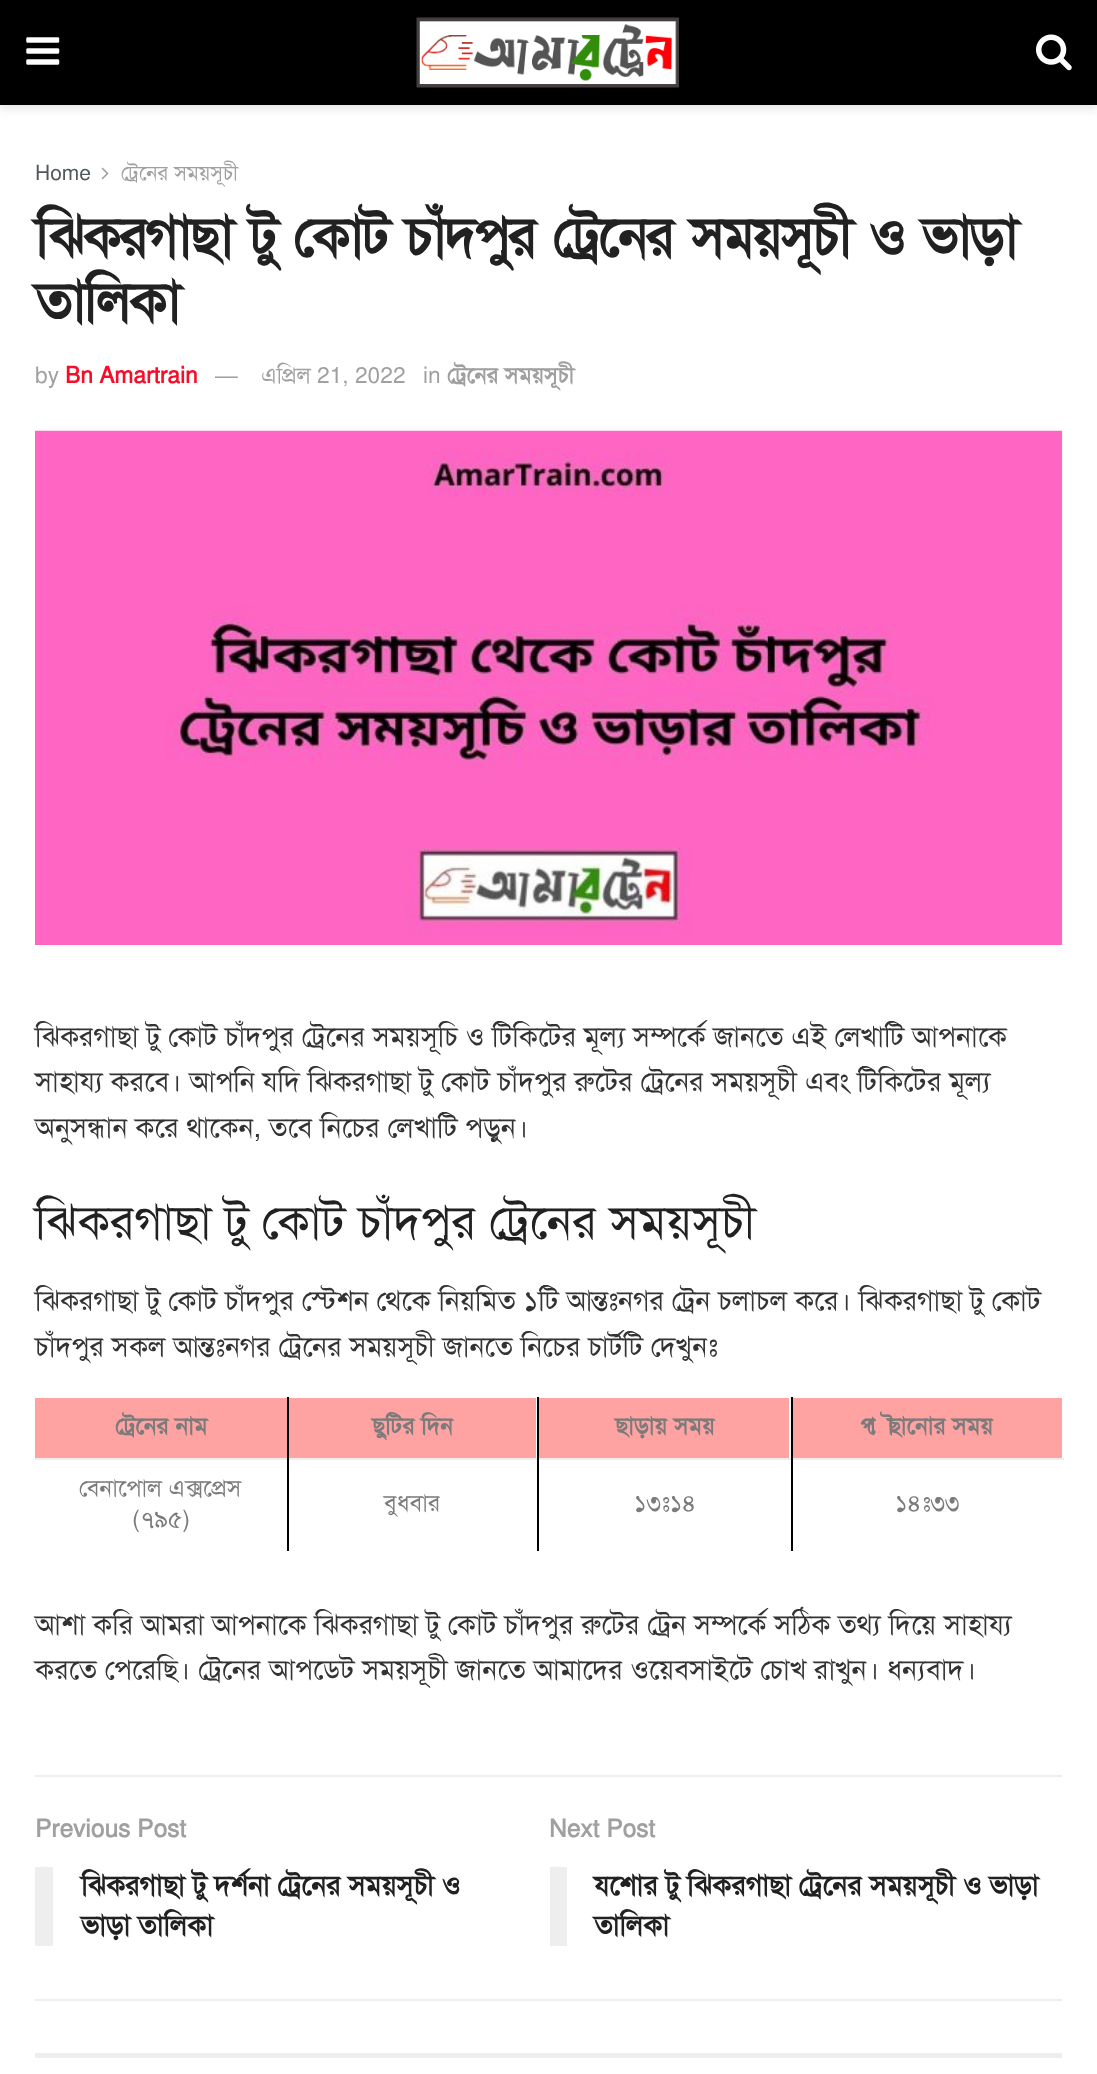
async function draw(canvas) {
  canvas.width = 1097;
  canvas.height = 2074;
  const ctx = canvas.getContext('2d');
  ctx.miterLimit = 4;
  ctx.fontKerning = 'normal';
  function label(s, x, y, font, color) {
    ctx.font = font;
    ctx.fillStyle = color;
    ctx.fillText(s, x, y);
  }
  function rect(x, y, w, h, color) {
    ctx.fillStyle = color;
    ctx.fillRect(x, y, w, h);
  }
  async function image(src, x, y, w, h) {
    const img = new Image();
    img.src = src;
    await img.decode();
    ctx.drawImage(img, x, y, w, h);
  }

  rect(0, 0, 1097, 2074, '#fff');
  ctx.fillStyle = '#0000001a';
  ctx.filter = 'blur(5px)';
  ctx.beginPath();
  ctx.rect(0, 4, 1097, 105);
  ctx.fill();
  ctx.filter = 'none';
  rect(0, 0, 1097, 105, '#000');
  await image('assets/img1.png', 26, 37, 34, 28);
  await image('assets/img2.png', 416, 17, 263, 71);
  await image('assets/img3.png', 1036, 34, 36, 37);
  label('Home', 35, 180, '21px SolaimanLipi', '#53585c');
  await image('assets/img4.png', 101, 167, 8, 13);
  label('ট্রেনের সময়সূচী', 121, 180, '21px SolaimanLipi', '#a0a0a0');
  ctx.letterSpacing = '-2.25px';
  ctx.wordSpacing = '5px';
  label('ঝিকরগাছা টু কোট চাঁদপুর ট্রেনের সময়সূচী ও ভাড়া', 35, 256, 'bold 56px SolaimanLipi', '#212121');
  ctx.wordSpacing = '0px';
  label('তালিকা', 35, 321, 'bold 56px SolaimanLipi', '#212121');
  ctx.letterSpacing = '0px';
  label('by', 35, 383, '22.75px SolaimanLipi', '#a0a0a0');
  label('Bn Amartrain', 65, 383, 'bold 22.75px SolaimanLipi', '#f70d28');
  label('—', 215, 383, '22.75px Liberation Sans', '#a0a0a0');
  label('এপ্রিল 21, 2022', 261, 383, '22.75px SolaimanLipi', '#a0a0a0');
  label('in', 423, 383, '22.75px SolaimanLipi', '#a0a0a0');
  label('ট্রেনের সময়সূচী', 447, 383, 'bold 22.75px SolaimanLipi', '#a0a0a0');
  await image('assets/img5.png', 35, 430, 1028, 515);
  label('ঝিকরগাছা টু কোট চাঁদপুর ট্রেনের সময়সূচি ও টিকিটের মূল্য সম্পর্কে জানতে এই লেখাটি আপনাকে', 35, 1046, '28px SolaimanLipi', '#333');
  label('সাহায্য করবে। আপনি যদি ঝিকরগাছা টু কোট চাঁদপুর রুটের ট্রেনের সময়সূচী এবং টিকিটের মূল্য', 35, 1091, '28px SolaimanLipi', '#333');
  label('অনুসন্ধান করে থাকেন, তবে নিচের লেখাটি পড়ুন।', 35, 1137, '28px SolaimanLipi', '#333');
  label('ঝিকরগাছা টু কোট চাঁদপুর ট্রেনের সময়সূচী', 35, 1238, '47.7px SolaimanLipi', '#212121');
  label('ঝিকরগাছা টু কোট চাঁদপুর স্টেশন থেকে নিয়মিত ১টি আন্তঃনগর ট্রেন চলাচল করে। ঝিকরগাছা টু কোট', 35, 1310, '28px SolaimanLipi', '#333');
  label('চাঁদপুর সকল আন্তঃনগর ট্রেনের সময়সূচী জানতে নিচের চার্টটি দেখুনঃ', 35, 1356, '28px SolaimanLipi', '#333');
  rect(35, 1458, 1029, 2, '#eee');
  rect(35, 1398, 252, 60, '#ffa2a2');
  label('ট্রেনের নাম', 115, 1434, 'bold 23.75px SolaimanLipi', '#7b7b7b');
  rect(289, 1398, 247, 60, '#ffa2a2');
  label('ছুটির দিন', 372, 1434, 'bold 23.75px SolaimanLipi', '#7b7b7b');
  rect(539, 1398, 250, 60, '#ffa2a2');
  label('ছাড়ায় সময়', 615, 1434, 'bold 23.75px SolaimanLipi', '#7b7b7b');
  rect(793, 1398, 269, 60, '#ffa2a2');
  label('পৌছানোর সময়', 860, 1434, 'bold 23.75px SolaimanLipi', '#7b7b7b');
  label('বেনাপোল এক্সপ্রেস', 79, 1496, '23.75px SolaimanLipi', '#7b7b7b');
  label('(৭৯৫)', 132, 1527, '23.75px SolaimanLipi', '#7b7b7b');
  rect(287, 1397, 2, 154, '#000');
  label('বুধবার', 384, 1511, '23.75px SolaimanLipi', '#7b7b7b');
  rect(791, 1397, 2, 154, '#000');
  rect(537, 1397, 2, 154, '#000');
  label('১৩ঃ১৪', 634, 1511, '23.75px SolaimanLipi', '#7b7b7b');
  label('১৪ঃ৩৩', 895, 1511, '23.75px SolaimanLipi', '#7b7b7b');
  label('আশা করি আমরা আপনাকে ঝিকরগাছা টু কোট চাঁদপুর রুটের ট্রেন সম্পর্কে সঠিক তথ্য দিয়ে সাহায্য', 35, 1634, '28px SolaimanLipi', '#333');
  label('করতে পেরেছি। ট্রেনের আপডেট সময়সূচী জানতে আমাদের ওয়েবসাইটে চোখ রাখুন। ধন্যবাদ।', 35, 1679, '28px SolaimanLipi', '#333');
  rect(35, 1775, 1027, 2, '#eee');
  rect(35, 1999, 1027, 2, '#eee');
  label('Previous Post', 35, 1837, 'bold 24.5px SolaimanLipi', '#a0a0a0');
  rect(35, 1867, 18, 79, '#eee');
  label('ঝিকরগাছা টু দর্শনা ট্রেনের সময়সূচী ও', 81, 1895, 'bold 28px SolaimanLipi', '#212121');
  label('ভাড়া তালিকা', 81, 1935, 'bold 28px SolaimanLipi', '#212121');
  label('Next Post', 549, 1837, 'bold 24.5px SolaimanLipi', '#a0a0a0');
  rect(550, 1867, 17, 79, '#eee');
  label('যশোর টু ঝিকরগাছা ট্রেনের সময়সূচী ও ভাড়া', 594, 1895, 'bold 28px SolaimanLipi', '#212121');
  label('তালিকা', 594, 1935, 'bold 28px SolaimanLipi', '#212121');
  rect(35, 2053, 1027, 5, '#eee');
}

draw(document.querySelector('canvas'));
